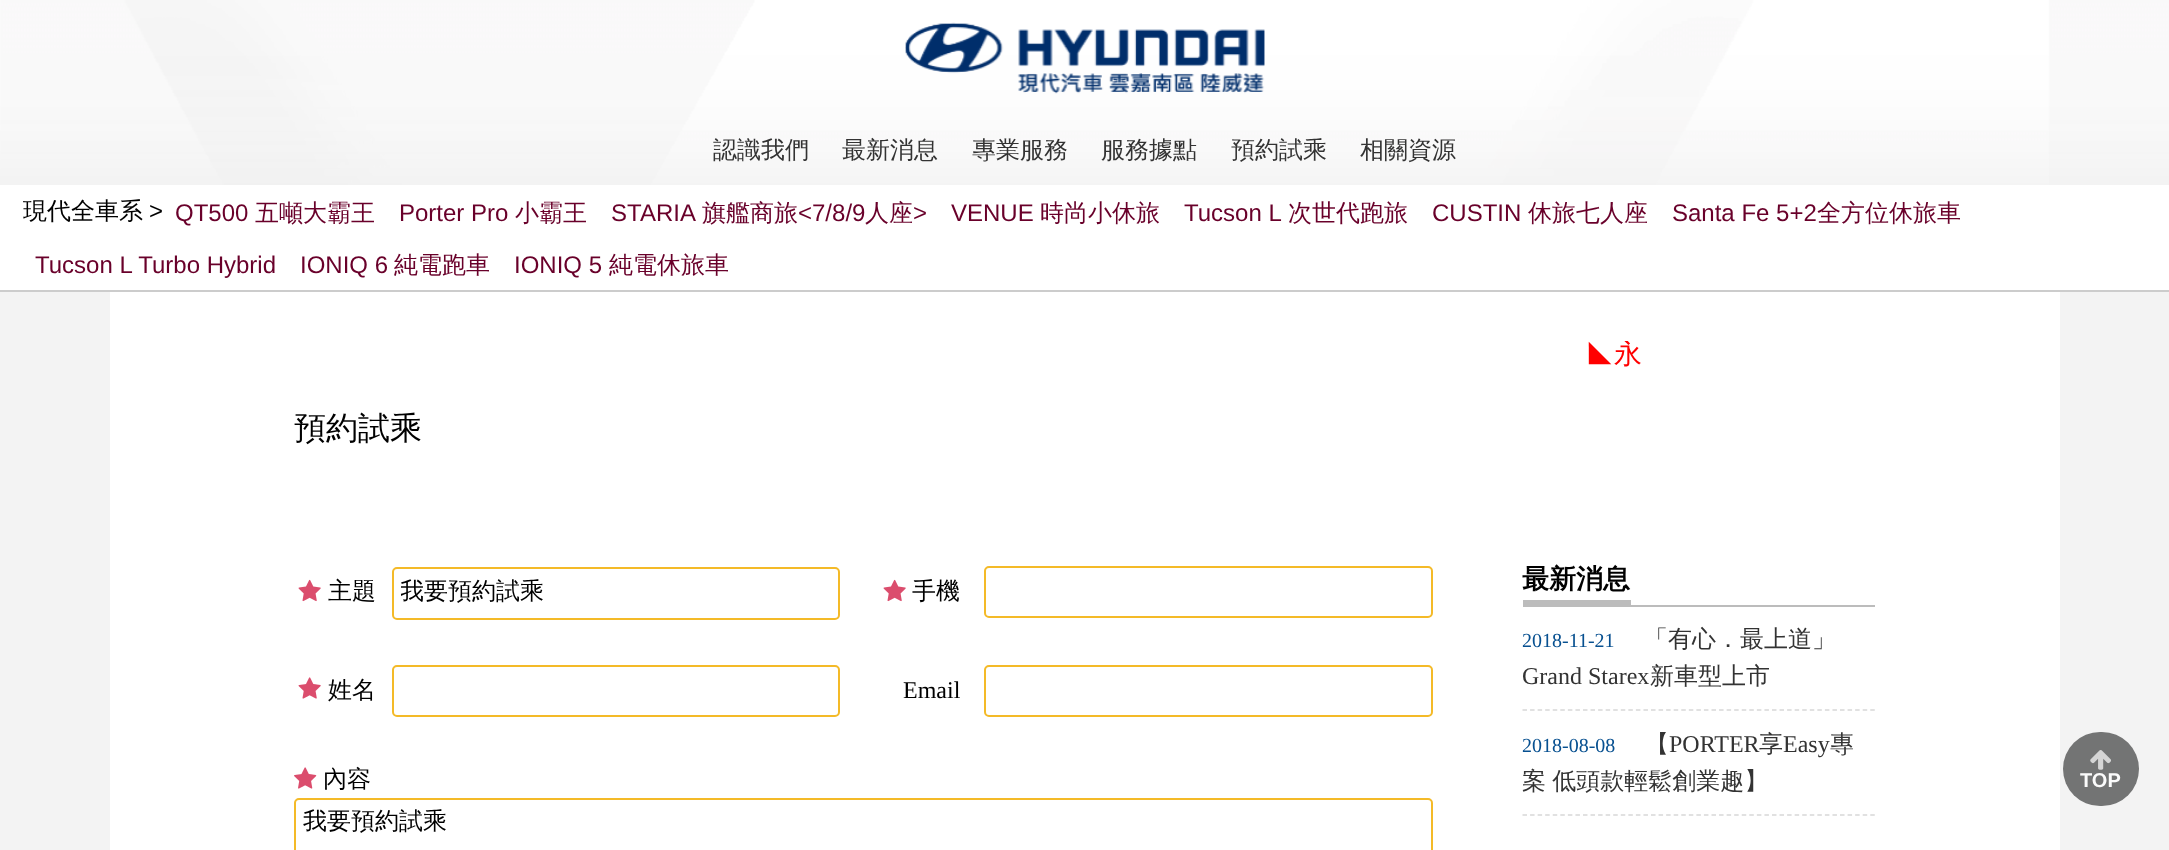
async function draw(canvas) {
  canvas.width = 2169;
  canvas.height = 850;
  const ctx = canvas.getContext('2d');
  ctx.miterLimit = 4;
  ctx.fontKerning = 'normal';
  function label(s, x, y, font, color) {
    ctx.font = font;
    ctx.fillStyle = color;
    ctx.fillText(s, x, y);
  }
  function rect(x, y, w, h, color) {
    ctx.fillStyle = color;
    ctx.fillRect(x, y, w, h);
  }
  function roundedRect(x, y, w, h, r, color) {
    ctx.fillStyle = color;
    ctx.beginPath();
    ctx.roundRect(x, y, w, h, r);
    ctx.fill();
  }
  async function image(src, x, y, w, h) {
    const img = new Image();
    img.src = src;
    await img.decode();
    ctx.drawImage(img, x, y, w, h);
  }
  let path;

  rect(0, 0, 2169, 850, '#f3f3f3');
  await image('assets/img1.png', 0, 0, 2169, 185);
  await image('assets/img2.png', 905, 22, 360, 72);
  label('認識我們', 713, 158, '500 24px WenQuanYi Zen Hei', '#333');
  label('最新消息', 842, 158, '500 24px WenQuanYi Zen Hei', '#333');
  label('專業服務', 972, 158, '500 24px WenQuanYi Zen Hei', '#333');
  label('服務據點', 1101, 158, '500 24px WenQuanYi Zen Hei', '#333');
  label('預約試乘', 1231, 158, '500 24px WenQuanYi Zen Hei', '#333');
  label('相關資源', 1360, 158, '500 24px WenQuanYi Zen Hei', '#333');
  rect(0, 185, 2169, 105, '#fff');
  rect(0, 290, 2169, 2, '#ccc');
  label('現代全車系', 23, 219, '500 24px WenQuanYi Zen Hei', '#000');
  label('>', 149, 219, '24px Liberation Sans', '#000');
  label('QT500', 175, 221, '24px Liberation Sans', '#69002a');
  label('五噸大霸王', 255, 221, '500 24px WenQuanYi Zen Hei', '#69002a');
  label('Porter Pro', 399, 221, '24px Liberation Sans', '#69002a');
  label('小霸王', 515, 221, '500 24px WenQuanYi Zen Hei', '#69002a');
  label('STARIA', 611, 221, '24px Liberation Sans', '#69002a');
  label('旗艦商旅', 702, 221, '500 24px WenQuanYi Zen Hei', '#69002a');
  label('<7/8/9', 798, 221, '24px Liberation Sans', '#69002a');
  label('人座', 865, 221, '500 24px WenQuanYi Zen Hei', '#69002a');
  label('>', 913, 221, '24px Liberation Sans', '#69002a');
  label('VENUE', 951, 221, '24px Liberation Sans', '#69002a');
  label('時尚小休旅', 1040, 221, '500 24px WenQuanYi Zen Hei', '#69002a');
  label('Tucson L', 1184, 221, '24px Liberation Sans', '#69002a');
  label('次世代跑旅', 1288, 221, '500 24px WenQuanYi Zen Hei', '#69002a');
  label('CUSTIN', 1432, 221, '24px Liberation Sans', '#69002a');
  label('休旅七人座', 1528, 221, '500 24px WenQuanYi Zen Hei', '#69002a');
  label('Santa Fe 5+2', 1672, 221, '24px Liberation Sans', '#69002a');
  label('全方位休旅車', 1817, 221, '500 24px WenQuanYi Zen Hei', '#69002a');
  label('Tucson L Turbo Hybrid', 35, 273, '24px Liberation Sans', '#69002a');
  label('IONIQ 6', 300, 273, '24px Liberation Sans', '#69002a');
  label('純電跑車', 394, 273, '500 24px WenQuanYi Zen Hei', '#69002a');
  label('IONIQ 5', 514, 273, '24px Liberation Sans', '#69002a');
  label('純電休旅車', 609, 273, '500 24px WenQuanYi Zen Hei', '#69002a');
  rect(110, 292, 1950, 558, '#fff');
  ctx.save();
  ctx.beginPath();
  ctx.rect(527, 341, 1116, 28);
  ctx.clip();
  label('◣永', 1586, 363, '500 28px WenQuanYi Zen Hei', '#f00');
  ctx.restore();
  label('預約試乘', 294, 439, '500 32px WenQuanYi Zen Hei', '#000');
  await image('assets/img3.png', 298, 579, 23, 23);
  label('主題', 328, 599, '500 24px WenQuanYi Zen Hei', '#000');
  ctx.beginPath();
  ctx.roundRect(393, 568, 446, 51, 4);
  ctx.strokeStyle = '#f4ba28';
  ctx.lineWidth = 2;
  ctx.stroke();
  ctx.save();
  ctx.beginPath();
  ctx.rect(401, 578, 430, 31);
  ctx.clip();
  label('我要預約試乘', 400, 599, '500 24px WenQuanYi Zen Hei', '#000');
  ctx.restore();
  await image('assets/img3.png', 883, 579, 23, 23);
  label('手機', 912, 599, '500 24px WenQuanYi Zen Hei', '#000');
  ctx.beginPath();
  ctx.roundRect(985, 567, 447, 50, 4);
  ctx.stroke();
  await image('assets/img4.png', 298, 677, 23, 22);
  label('姓名', 328, 698, '500 24px WenQuanYi Zen Hei', '#000');
  ctx.beginPath();
  ctx.roundRect(393, 666, 446, 50, 4);
  ctx.stroke();
  label('Email', 903, 698, '24px Liberation Serif', '#000');
  ctx.beginPath();
  ctx.roundRect(985, 666, 447, 50, 4);
  ctx.stroke();
  await image('assets/img5.png', 294, 767, 23, 22);
  label('內容', 323, 787, '500 24px WenQuanYi Zen Hei', '#000');
  ctx.beginPath();
  ctx.roundRect(295, 799, 1137, 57, 4);
  ctx.stroke();
  label('我要預約試乘', 303, 829, '500 24px WenQuanYi Zen Hei', '#000');
  rect(1523, 605, 352, 2, '#bcbcbc');
  rect(1523, 600, 108, 5, '#bcbcbc');
  label('最新消息', 1522, 588, 'bold 27px WenQuanYi Zen Hei', '#000');
  path = new Path2D('M1522.5 710H1875');
  ctx.strokeStyle = '#d7d7d7';
  ctx.lineWidth = 1.5;
  ctx.setLineDash([4.5, 3.06]);
  ctx.stroke(path);
  label('2018-11-21', 1522, 647, '20px Liberation Serif', '#075090');
  label('「有心．最上道」', 1644, 647, '500 24px WenQuanYi Zen Hei', '#333');
  label('Grand Starex', 1522, 684, '24px Liberation Serif', '#333');
  label('新車型上市', 1650, 684, '500 24px WenQuanYi Zen Hei', '#333');
  path = new Path2D('M1522.5 815H1875');
  ctx.stroke(path);
  label('2018-08-08', 1522, 752, '20px Liberation Serif', '#075090');
  label('【', 1645, 752, '500 24px WenQuanYi Zen Hei', '#333');
  label('PORTER', 1669, 752, '24px Liberation Serif', '#333');
  label('享', 1759, 752, '500 24px WenQuanYi Zen Hei', '#333');
  label('Easy', 1783, 752, '24px Liberation Serif', '#333');
  label('專', 1830, 752, '500 24px WenQuanYi Zen Hei', '#333');
  ctx.wordSpacing = '-1px';
  label('案 低頭款輕鬆創業趣】', 1522, 789, '500 24px WenQuanYi Zen Hei', '#333');
  roundedRect(2063, 732, 76, 74, 37, '#737474');
  await image('assets/img6.png', 2090, 750, 21, 20);
  ctx.wordSpacing = '0px';
  label('TOP', 2080, 787, 'bold 20px Liberation Sans', '#fbfbfb');
}

draw(document.querySelector('canvas'));
